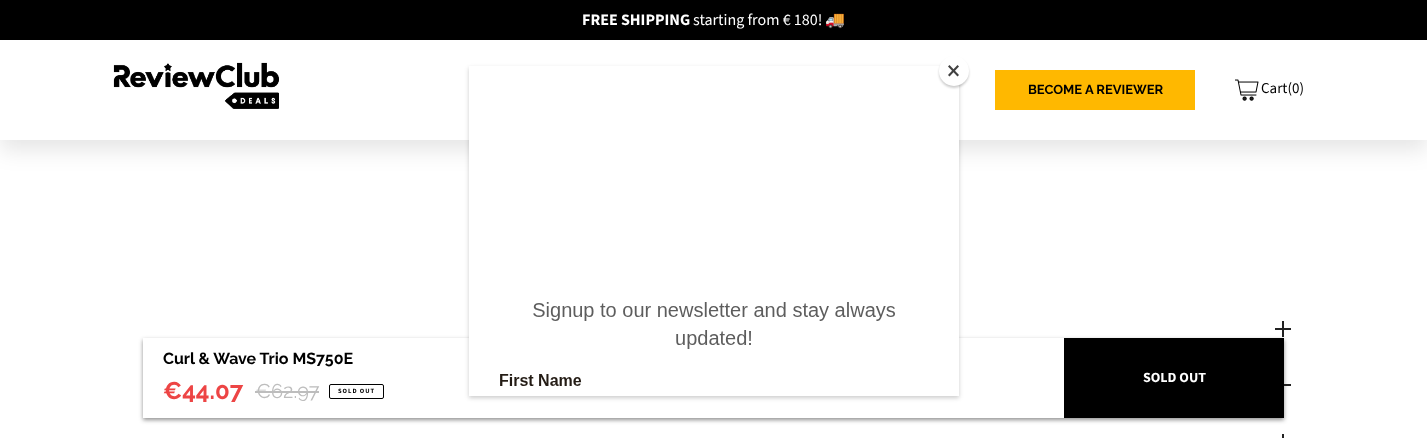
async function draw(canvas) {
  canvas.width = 1427;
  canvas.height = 438;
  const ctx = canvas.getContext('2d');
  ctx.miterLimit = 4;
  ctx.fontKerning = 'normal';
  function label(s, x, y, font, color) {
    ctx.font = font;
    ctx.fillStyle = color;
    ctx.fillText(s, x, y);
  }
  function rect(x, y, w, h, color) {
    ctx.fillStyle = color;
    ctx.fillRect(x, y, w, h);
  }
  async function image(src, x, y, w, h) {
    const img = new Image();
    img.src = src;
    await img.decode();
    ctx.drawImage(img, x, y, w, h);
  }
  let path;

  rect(0, 0, 1427, 438, '#fff');
  ctx.fillStyle = '#0000001a';
  ctx.filter = 'blur(11px)';
  ctx.beginPath();
  ctx.rect(0, 10, 1427, 140);
  ctx.fill();
  ctx.filter = 'none';
  rect(0, 40, 1427, 100, '#fff');
  rect(0, 0, 1427, 40, '#000');
  label('FREE SHIPPING', 582, 25, 'bold 16px Source Sans Pro', '#fff');
  label('starting from € 180!', 693, 25, '16px Source Sans Pro', '#fff');
  label('🚚', 825, 25, '16px Noto Color Emoji', '#fff');
  await image('assets/img1.png', 113, 62, 166, 47);
  rect(995, 70, 200, 40, '#ffb800');
  label('BECOME A REVIEWER', 1028, 94, 'bold 13px Raleway', '#000');
  await image('assets/img2.png', 1235, 79, 24, 22);
  label('Cart(0)', 1261, 93, '15px Source Sans Pro', '#000');
  rect(1282, 321, 2, 16, '#222');
  rect(1284, 384, 7, 2, '#222');
  ctx.fillStyle = '#22222280';
  ctx.filter = 'blur(2px)';
  ctx.beginPath();
  ctx.rect(143, 340, 1141, 80);
  ctx.fill();
  ctx.filter = 'none';
  rect(143, 338, 921, 80, '#fff');
  label('Curl & Wave Trio MS750E', 163, 364, 'bold 16px Raleway', '#000');
  label('€44.07', 163, 399, 'bold 24px Raleway', '#ed4545');
  label('€62.97', 255, 398, '20px Raleway', '#bdbdbd');
  rect(255, 391, 64, 2, '#bdbdbd');
  ctx.beginPath();
  ctx.roundRect(329.5, 384.5, 54, 14, 1.5);
  ctx.strokeStyle = '#000';
  ctx.stroke();
  ctx.letterSpacing = '1px';
  label('SOLD OUT', 338, 393, 'bold 6.5px Source Sans Pro', '#000');
  rect(1064, 338, 220, 80, '#000');
  ctx.letterSpacing = '0px';
  label('SOLD OUT', 1143, 382, 'bold 14px Source Sans Pro', '#fff');
  rect(1275, 328, 16, 2, '#222');
  rect(1282, 434, 2, 4, '#222');
  ctx.save();
  path = new Path2D('M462 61H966V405H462ZM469 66H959V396H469Z');
  ctx.clip(path, 'evenodd');
  ctx.fillStyle = '#00000033';
  ctx.filter = 'blur(2px)';
  ctx.beginPath();
  ctx.rect(469, 68, 490, 330);
  ctx.fill();
  ctx.filter = 'none';
  ctx.restore();
  await image('assets/img3.png', 469, 82, 490, 312);
  ctx.fillStyle = '#00000033';
  ctx.filter = 'blur(1px)';
  ctx.beginPath();
  ctx.roundRect(939, 58, 30, 30, 15);
  ctx.fill();
  ctx.filter = 'none';
  ctx.fillStyle = '#fff';
  ctx.beginPath();
  ctx.arc(954, 71, 15, 0, 2 * Math.PI);
  ctx.fill();
  ctx.fillStyle = '#414141';
  path = new Path2D('M957.5 65L959 66.5L949.5 76.5L948 75Z');
  ctx.fill(path);
  path = new Path2D('M948 66.5L949.5 65L959 75L957.5 76.5Z');
  ctx.fill(path);
}

draw(document.querySelector('canvas'));
